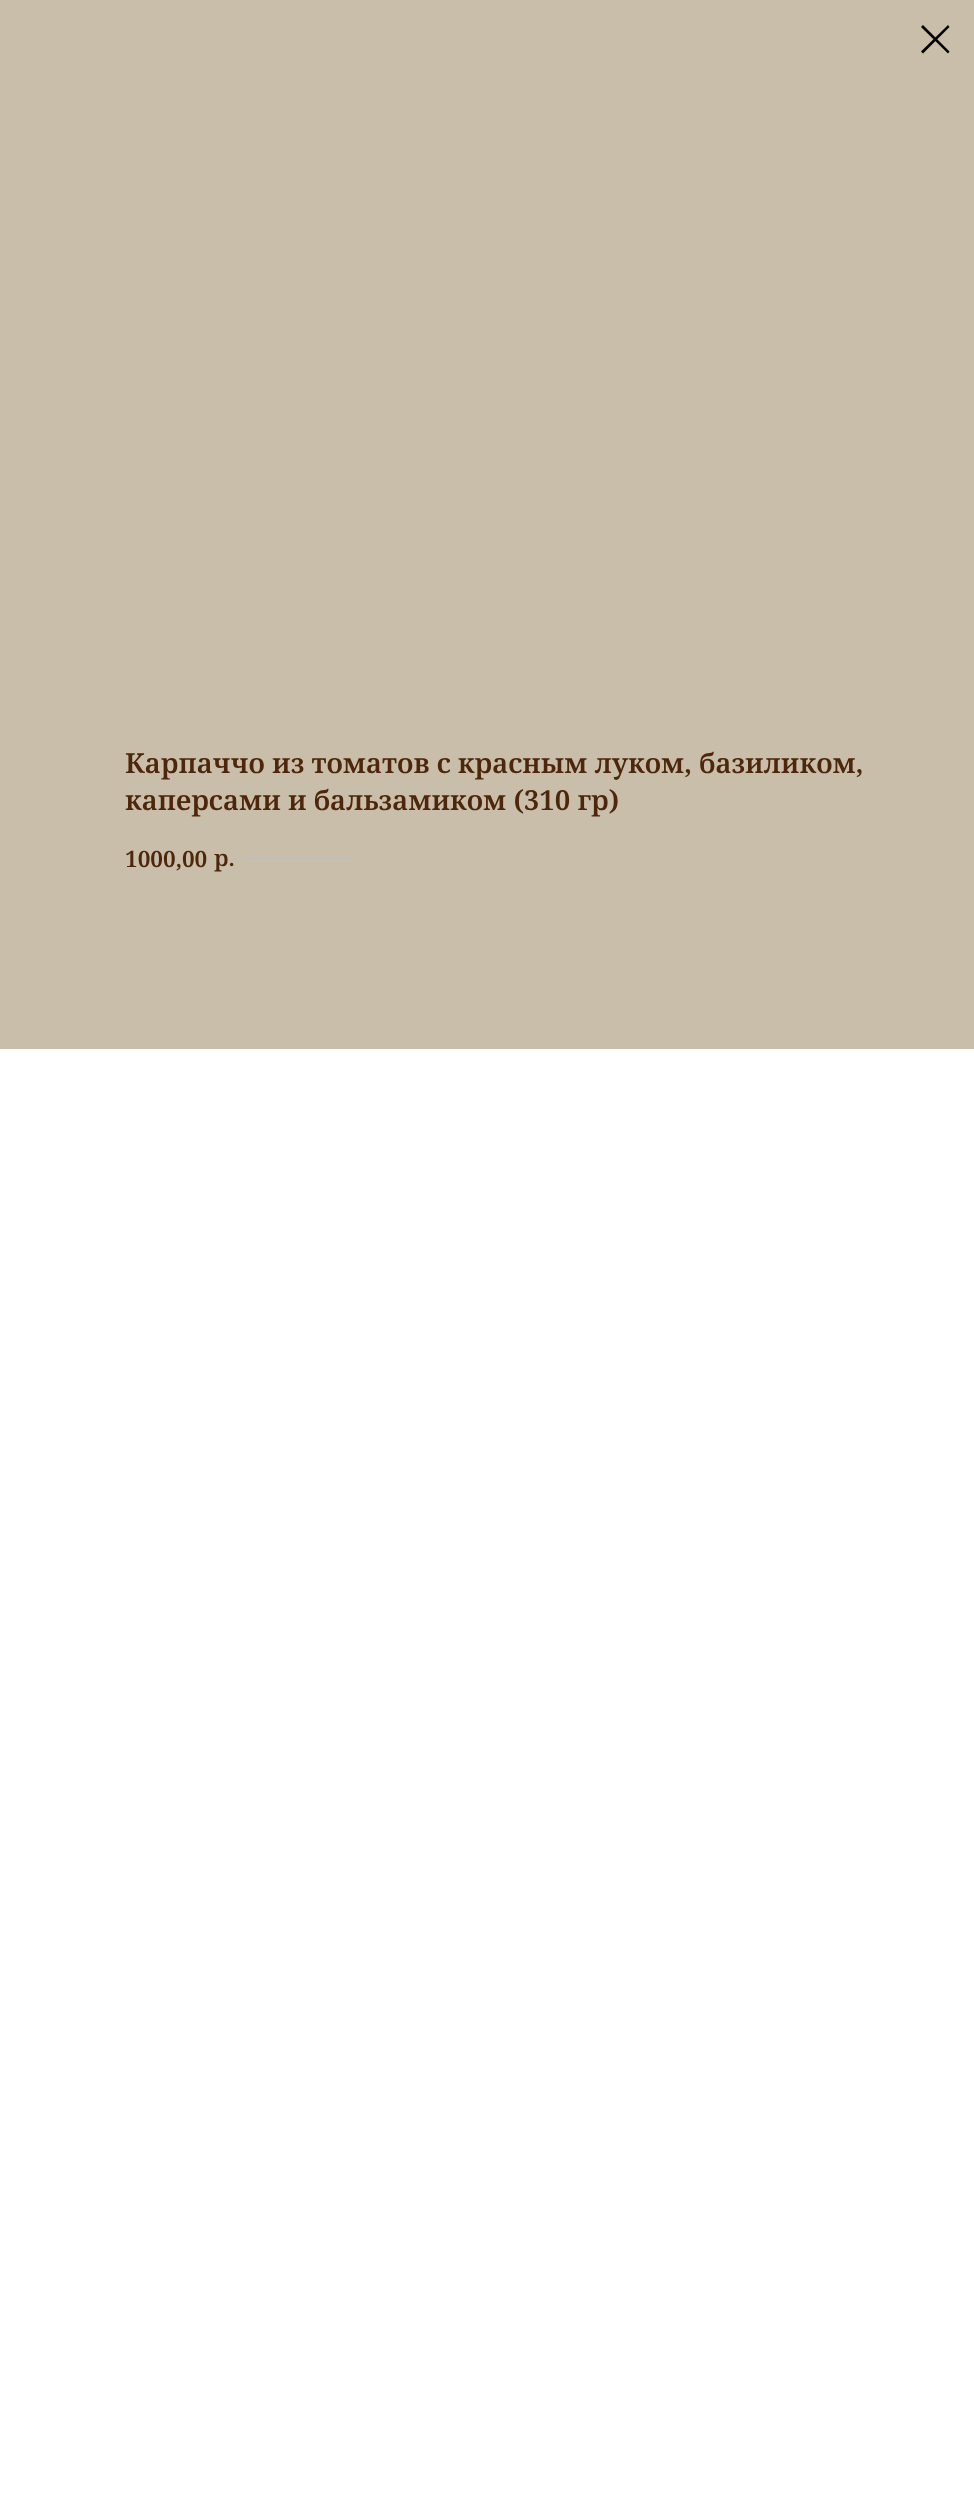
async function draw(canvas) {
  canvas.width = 974;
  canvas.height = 2505;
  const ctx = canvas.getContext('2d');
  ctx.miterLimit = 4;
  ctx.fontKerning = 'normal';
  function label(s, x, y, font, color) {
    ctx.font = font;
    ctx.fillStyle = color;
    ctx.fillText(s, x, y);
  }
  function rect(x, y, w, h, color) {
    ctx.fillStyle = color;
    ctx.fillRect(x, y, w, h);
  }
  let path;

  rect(0, 0, 974, 2505, '#fff');
  rect(0, 0, 974, 1049, '#c9beaa');
  ctx.fillStyle = '#000';
  path = new Path2D('M921 27L923 25L949.5 51.5L948 53.5Z');
  ctx.fill(path, 'evenodd');
  path = new Path2D('M948 25L949.5 27L923 53.5L921 51.5Z');
  ctx.fill(path, 'evenodd');
  label('Карпаччо из томатов с красным луком, базиликом,', 125, 773, '600 27.5px Noto Serif', '#4d260b');
  label('каперсами и бальзамиком (310 гр)', 125, 810, '600 27.5px Noto Serif', '#4d260b');
  label('1000,00', 125, 867, '600 22.5px Noto Serif', '#4d260b');
  label('р.', 214, 866, '600 22.5px Noto Serif', '#4d260b');
  rect(244, 858, 110, 1, '#bdbdbd');
}

draw(document.querySelector('canvas'));
